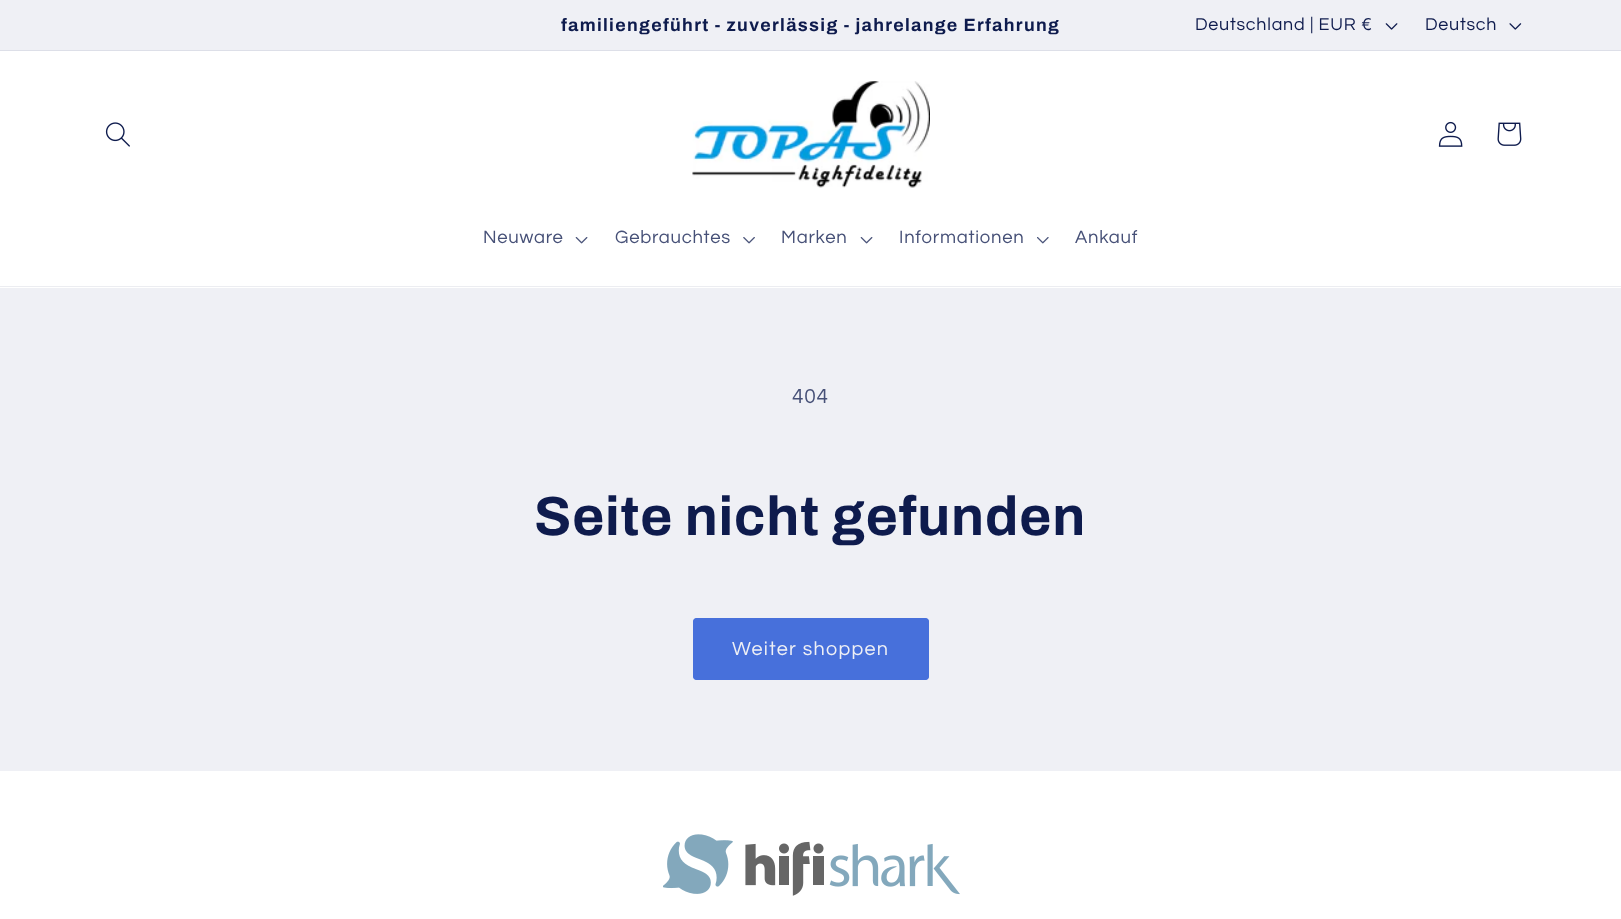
async function draw(canvas) {
  canvas.width = 1621;
  canvas.height = 919;
  const ctx = canvas.getContext('2d');
  ctx.miterLimit = 4;
  ctx.fontKerning = 'normal';
  function label(s, x, y, font, color) {
    ctx.font = font;
    ctx.fillStyle = color;
    ctx.fillText(s, x, y);
  }
  function rect(x, y, w, h, color) {
    ctx.fillStyle = color;
    ctx.fillRect(x, y, w, h);
  }
  function roundedRect(x, y, w, h, r, color) {
    ctx.fillStyle = color;
    ctx.beginPath();
    ctx.roundRect(x, y, w, h, r);
    ctx.fill();
  }
  async function image(src, x, y, w, h) {
    const img = new Image();
    img.src = src;
    await img.decode();
    ctx.drawImage(img, x, y, w, h);
  }

  rect(0, 0, 1621, 919, '#eff0f5');
  rect(0, 50, 1621, 1, '#dddfe8');
  ctx.letterSpacing = '1.3px';
  label('familiengeführt - zuverlässig - jahrelange Erfahrung', 561, 31, 'bold 17.9px Archivo', '#0e1b4d');
  ctx.letterSpacing = '0.75px';
  label('Deutschland | EUR €', 1195, 30, '17.9px Questrial', '#0e1b4d');
  await image('assets/img1.png', 1385, 23, 13, 7);
  label('Deutsch', 1425, 30, '17.9px Questrial', '#0e1b4d');
  await image('assets/img2.png', 1509, 23, 13, 7);
  rect(0, 51, 1621, 237, '#fff');
  rect(0, 286, 1621, 1, '#ecedf1');
  await image('assets/img3.png', 105, 122, 25, 25);
  await image('assets/img4.png', 692, 81, 238, 107);
  await image('assets/img5.png', 1438, 121, 25, 26);
  await image('assets/img6.png', 1497, 122, 25, 24);
  label('Neuware', 483, 243, '18.5px Questrial', '#465077');
  await image('assets/img7.png', 575, 237, 13, 7);
  label('Gebrauchtes', 615, 243, '18.5px Questrial', '#465077');
  await image('assets/img8.png', 743, 237, 12, 7);
  label('Marken', 781, 243, '18.5px Questrial', '#465077');
  await image('assets/img7.png', 860, 237, 13, 7);
  label('Informationen', 899, 243, '18.5px Questrial', '#465077');
  await image('assets/img9.png', 1037, 237, 12, 7);
  label('Ankauf', 1075, 243, '18.5px Questrial', '#465077');
  label('404', 792, 403, '21px Questrial', '#465077');
  ctx.letterSpacing = '0.8px';
  label('Seite nicht gefunden', 534, 535, 'bold 55px Archivo', '#0e1b4d');
  roundedRect(693, 618, 236, 62, 4, '#4770db');
  ctx.beginPath();
  ctx.roundRect(693.5, 618.5, 235, 61, 3.5);
  ctx.strokeStyle = '#4770db';
  ctx.stroke();
  ctx.letterSpacing = '1.3px';
  label('Weiter shoppen', 732, 655, '19.75px Questrial', '#eff0f5');
  rect(0, 771, 1621, 148, '#fff');
  await image('assets/img10.png', 663, 834, 297, 62);
}

draw(document.querySelector('canvas'));
